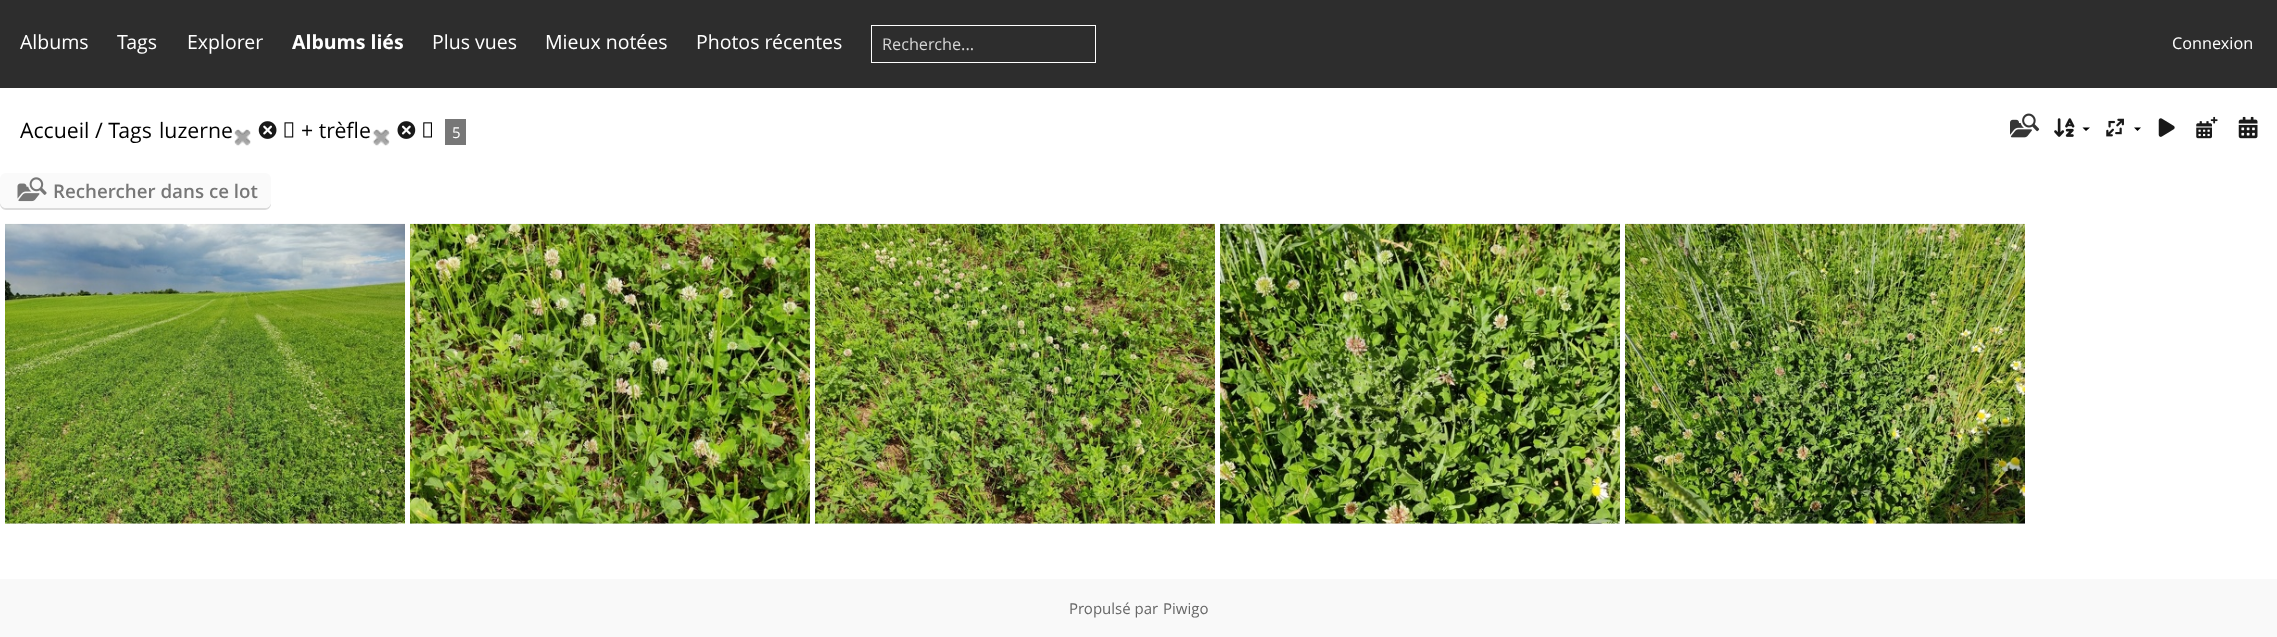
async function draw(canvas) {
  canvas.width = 2277;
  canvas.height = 637;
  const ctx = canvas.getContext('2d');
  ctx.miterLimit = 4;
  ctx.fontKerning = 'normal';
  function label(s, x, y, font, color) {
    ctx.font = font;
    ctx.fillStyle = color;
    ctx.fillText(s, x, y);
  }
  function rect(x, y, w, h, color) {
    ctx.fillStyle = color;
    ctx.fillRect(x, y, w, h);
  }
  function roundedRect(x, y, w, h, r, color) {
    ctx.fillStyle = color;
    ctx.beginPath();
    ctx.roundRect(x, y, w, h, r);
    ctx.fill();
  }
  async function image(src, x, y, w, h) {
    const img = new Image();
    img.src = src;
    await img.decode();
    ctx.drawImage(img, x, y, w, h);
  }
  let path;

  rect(0, 0, 2277, 637, '#fff');
  rect(0, 0, 2277, 88, '#2d2d2d');
  label('Albums', 20, 49, '19.5px Open Sans', '#fff');
  label('Tags', 117, 49, '19.5px Open Sans', '#fff');
  label('Explorer', 187, 49, '19.5px Open Sans', '#fff');
  label('Albums liés', 292, 49, 'bold 19.5px Open Sans', '#fff');
  label('Plus vues', 432, 49, '19.5px Open Sans', '#fff');
  label('Mieux notées', 545, 49, '19.5px Open Sans', '#fff');
  label('Photos récentes', 696, 49, '19.5px Open Sans', '#fff');
  ctx.strokeStyle = '#fff';
  ctx.strokeRect(871.5, 25.5, 224, 37);
  label('Recherche...', 882, 50, '16.25px Open Sans', '#d6d6d6');
  label('Connexion', 2172, 49, '16.25px Open Sans', '#fff');
  label('Accueil / Tags', 20, 138, '21.25px Open Sans', '#000');
  label('luzerne', 159, 138, '21.25px Open Sans', '#000');
  await image('assets/img1.png', 234, 129, 17, 17);
  await image('assets/img2.png', 258, 121, 19, 18);
  await image('assets/img3.png', 284, 122, 10, 16);
  label('+ trèfle', 301, 138, '21.25px Open Sans', '#000');
  await image('assets/img4.png', 372, 129, 18, 17);
  await image('assets/img5.png', 397, 121, 19, 18);
  await image('assets/img6.png', 423, 122, 9, 16);
  rect(445, 119, 21, 26, '#777');
  label('5', 452, 138, '15px Open Sans', '#fff');
  await image('assets/img7.png', 2010, 113, 30, 25);
  await image('assets/img8.png', 2054, 118, 21, 19);
  ctx.fillStyle = '#000';
  path = new Path2D('M2082.5 127.5H2090L2086 131ZM2134 127.5H2141L2137.5 131Z');
  ctx.fill(path);
  await image('assets/img9.png', 2196, 116, 22, 23);
  await image('assets/img10.png', 2238, 116, 20, 23);
  await image('assets/img11.png', 2106, 118, 18, 19);
  await image('assets/img12.png', 2158, 118, 17, 19);
  ctx.fillStyle = '#dbdbdb';
  path = new Path2D('M0 201V204C0 207 3 210 6 210H265C268 210 271 207 271 204V203C270 206 268 208 265 208H6C3 208 0 205 0 201Z');
  ctx.fill(path);
  roundedRect(0, 173, 271, 35, 6, '#fafafa');
  await image('assets/img13.png', 17, 177, 30, 25);
  label('Rechercher dans ce lot', 53, 198, '600 18.75px Open Sans', '#777');
  await image('assets/img14.png', 5, 223, 400, 301);
  await image('assets/img15.png', 410, 223, 400, 301);
  await image('assets/img16.png', 815, 223, 400, 301);
  await image('assets/img17.png', 1220, 223, 400, 301);
  await image('assets/img18.png', 1625, 223, 400, 301);
  rect(0, 579, 2277, 58, '#f9f9f9');
  label('Propulsé par', 1069, 614, '15px Open Sans', '#666');
  label('Piwigo', 1163, 614, '15px Open Sans', '#666');
}

draw(document.querySelector('canvas'));
